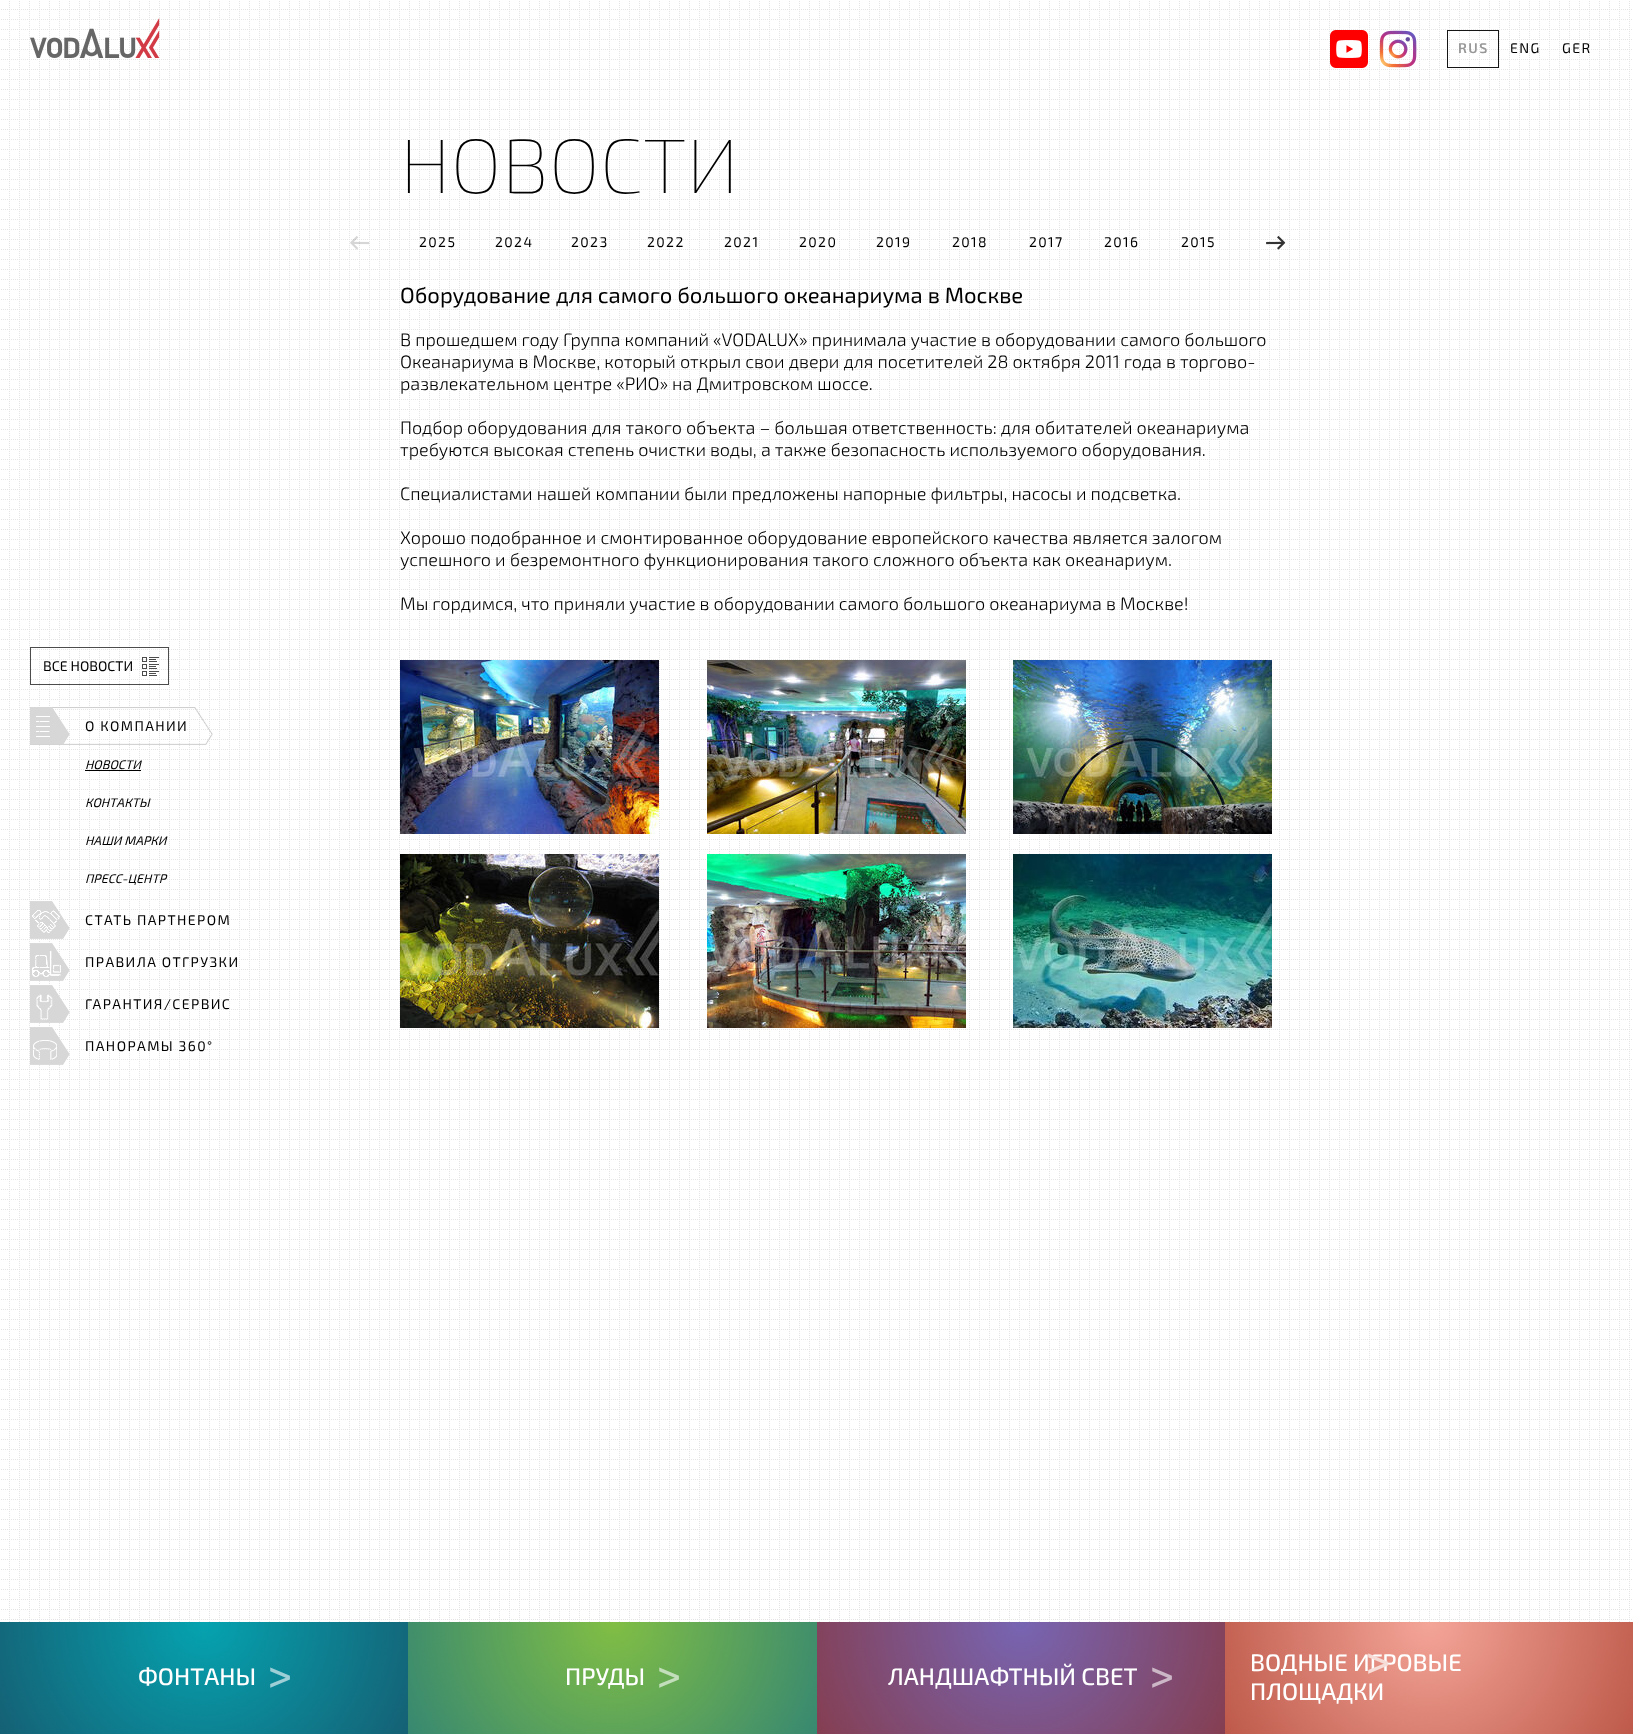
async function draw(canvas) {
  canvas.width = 1633;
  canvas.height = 1734;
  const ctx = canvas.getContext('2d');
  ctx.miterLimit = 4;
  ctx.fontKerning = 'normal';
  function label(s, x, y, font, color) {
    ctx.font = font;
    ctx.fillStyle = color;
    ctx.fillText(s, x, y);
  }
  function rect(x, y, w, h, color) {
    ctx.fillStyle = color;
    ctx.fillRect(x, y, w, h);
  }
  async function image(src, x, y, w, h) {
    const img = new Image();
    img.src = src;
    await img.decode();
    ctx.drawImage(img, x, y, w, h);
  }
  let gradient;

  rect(0, 0, 1633, 1734, '#fff');
  await image('assets/img1.png', 1, 1, 1631, 1621);
  await image('assets/img2.png', 30, 18, 130, 40);
  await image('assets/img3.png', 1330, 30, 38, 38);
  await image('assets/img4.png', 1379, 30, 38, 38);
  ctx.strokeStyle = '#000000b3';
  ctx.strokeRect(1447.5, 30.5, 51, 37);
  ctx.strokeRect(1447.5, 30.5, 51, 37);
  ctx.letterSpacing = '1.4px';
  label('RUS', 1458, 53, '600 14px "Exo 2"', '#979797');
  label('ENG', 1510, 53, '14px "Exo 2"', '#000');
  label('GER', 1562, 53, '14px "Exo 2"', '#000');
  ctx.letterSpacing = '0px';
  label('НОВОСТИ', 400, 193, '100 77px "Exo 2"', '#000');
  await image('assets/img5.png', 350, 236, 20, 14);
  await image('assets/img6.png', 1266, 235, 20, 15);
  ctx.letterSpacing = '1.4px';
  label('2025', 419, 247, '14px "Exo 2"', '#000');
  label('2024', 495, 247, '14px "Exo 2"', '#000');
  label('2023', 571, 247, '14px "Exo 2"', '#000');
  label('2022', 647, 247, '14px "Exo 2"', '#000');
  label('2021', 724, 247, '14px "Exo 2"', '#000');
  label('2020', 799, 247, '14px "Exo 2"', '#000');
  label('2019', 876, 247, '14px "Exo 2"', '#000');
  label('2018', 952, 247, '14px "Exo 2"', '#000');
  label('2017', 1029, 247, '14px "Exo 2"', '#000');
  label('2016', 1104, 247, '14px "Exo 2"', '#000');
  label('2015', 1181, 247, '14px "Exo 2"', '#000');
  ctx.letterSpacing = '0px';
  label('Оборудование для самого большого океанариума в Москве', 400, 303, '22px "Exo 2"', '#000');
  label('В прошедшем году Группа компаний «VODALUX» принимала участие в оборудовании самого большого', 400, 346, '300 18px "Exo 2"', '#000');
  label('Океанариума в Москве, который открыл свои двери для посетителей 28 октября 2011 года в торгово-', 400, 368, '300 18px "Exo 2"', '#000');
  label('развлекательном центре «РИО» на Дмитровском шоссе.', 400, 390, '300 18px "Exo 2"', '#000');
  label('Подбор оборудования для такого объекта – большая ответственность: для обитателей океанариума', 400, 434, '300 18px "Exo 2"', '#000');
  label('требуются высокая степень очистки воды, а также безопасность используемого оборудования.', 400, 456, '300 18px "Exo 2"', '#000');
  label('Специалистами нашей компании были предложены напорные фильтры, насосы и подсветка.', 400, 500, '300 18px "Exo 2"', '#000');
  label('Хорошо подобранное и смонтированное оборудование европейского качества является залогом', 400, 544, '300 18px "Exo 2"', '#000');
  label('успешного и безремонтного функционирования такого сложного объекта как океанариум.', 400, 566, '300 18px "Exo 2"', '#000');
  label('Мы гордимся, что приняли участие в оборудовании самого большого океанариума в Москве!', 400, 610, '300 18px "Exo 2"', '#000');
  await image('assets/img7.png', 400, 660, 259, 174);
  await image('assets/img8.png', 707, 660, 259, 174);
  await image('assets/img9.png', 1013, 660, 259, 174);
  await image('assets/img10.png', 400, 854, 259, 174);
  await image('assets/img11.png', 707, 854, 259, 174);
  await image('assets/img12.png', 1013, 854, 259, 174);
  ctx.strokeRect(30.5, 647.5, 138, 37);
  label('ВСЕ НОВОСТИ', 43, 671, '14px "Exo 2"', '#000');
  await image('assets/img13.png', 142, 657, 17, 19);
  await image('assets/img15.png', 30, 707, 183, 38);
  await image('assets/img14.png', 30, 707, 40, 37);
  ctx.letterSpacing = '1.4px';
  label('О КОМПАНИИ', 85, 731, '14px "Exo 2"', '#000');
  ctx.letterSpacing = '0px';
  label('НОВОСТИ', 85, 769, 'italic 12.5px "Exo 2"', '#000');
  rect(85, 770, 56, 1, '#000');
  label('КОНТАКТЫ', 85, 807, 'italic 12.5px "Exo 2"', '#000');
  label('НАШИ МАРКИ', 85, 845, 'italic 12.5px "Exo 2"', '#000');
  label('ПРЕСС-ЦЕНТР', 85, 883, 'italic 12.5px "Exo 2"', '#000');
  await image('assets/img16.png', 30, 901, 40, 38);
  ctx.letterSpacing = '1.4px';
  label('СТАТЬ ПАРТНЕРОМ', 85, 925, '14px "Exo 2"', '#000');
  await image('assets/img17.png', 30, 943, 40, 38);
  label('ПРАВИЛА ОТГРУЗКИ', 85, 967, '14px "Exo 2"', '#000');
  await image('assets/img18.png', 30, 985, 40, 38);
  label('ГАРАНТИЯ/СЕРВИС', 85, 1009, '14px "Exo 2"', '#000');
  await image('assets/img19.png', 30, 1027, 40, 38);
  label('ПАНОРАМЫ 360°', 85, 1051, '14px "Exo 2"', '#000');
  gradient = ctx.createRadialGradient(204, 1622, 0, 204, 1622, 233);
  gradient.addColorStop(0, '#05a3b0');
  gradient.addColorStop(1, '#156074');
  ctx.fillStyle = gradient;
  ctx.fillRect(0, 1622, 408, 112);
  ctx.letterSpacing = '0px';
  label('ФОНТАНЫ', 138, 1685, '500 24px "Exo 2"', '#fff');
  ctx.letterSpacing = '-17px';
  label('>', 267, 1692, '500 48px "Exo 2"', '#9ecfd6');
  gradient = ctx.createRadialGradient(613, 1622, 0, 613, 1622, 233);
  gradient.addColorStop(0, '#81be44');
  gradient.addColorStop(1, '#378871');
  ctx.fillStyle = gradient;
  ctx.fillRect(408, 1622, 409, 112);
  ctx.letterSpacing = '0px';
  label('ПРУДЫ', 565, 1685, '500 24px "Exo 2"', '#fff');
  ctx.letterSpacing = '-17px';
  label('>', 656, 1692, '500 48px "Exo 2"', '#c3deba');
  gradient = ctx.createRadialGradient(1021, 1622, 0, 1021, 1622, 233);
  gradient.addColorStop(0, '#7765b3');
  gradient.addColorStop(1, '#853e51');
  ctx.fillStyle = gradient;
  ctx.fillRect(817, 1622, 408, 112);
  ctx.letterSpacing = '0px';
  label('ЛАНДШАФТНЫЙ СВЕТ', 888, 1685, '500 24px "Exo 2"', '#fff');
  ctx.letterSpacing = '-17px';
  label('>', 1149, 1692, '500 48px "Exo 2"', '#ccb7c7');
  gradient = ctx.createRadialGradient(1429, 1622, 0, 1429, 1622, 233);
  gradient.addColorStop(0, '#f4a598');
  gradient.addColorStop(1, '#bd594a');
  ctx.fillStyle = gradient;
  ctx.fillRect(1225, 1622, 408, 112);
  ctx.letterSpacing = '0px';
  label('ВОДНЫЕ ИГРОВЫЕ', 1250, 1671, '500 24px "Exo 2"', '#fff');
  ctx.letterSpacing = '-17px';
  label('>', 1365, 1678, '500 48px "Exo 2"', '#f7ddd8');
  ctx.letterSpacing = '0px';
  label('ПЛОЩАДКИ', 1250, 1700, '500 24px "Exo 2"', '#fff');
}

draw(document.querySelector('canvas'));
